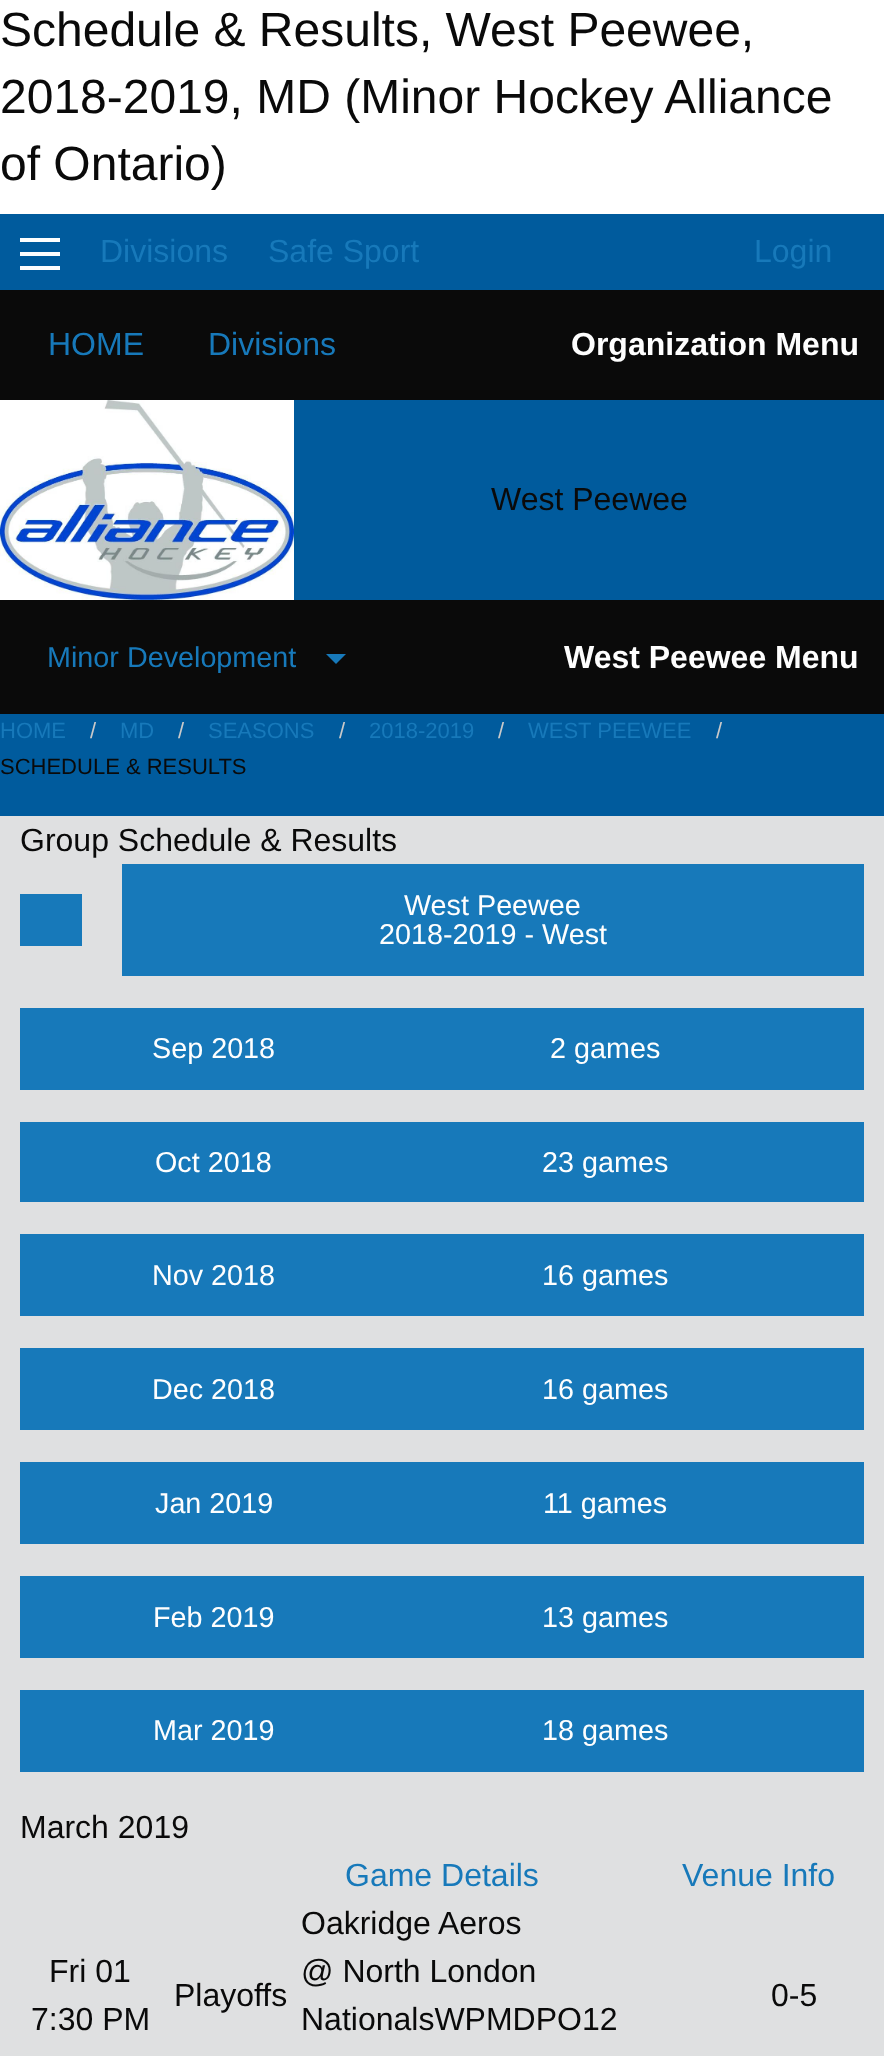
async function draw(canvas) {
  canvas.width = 884;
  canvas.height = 2056;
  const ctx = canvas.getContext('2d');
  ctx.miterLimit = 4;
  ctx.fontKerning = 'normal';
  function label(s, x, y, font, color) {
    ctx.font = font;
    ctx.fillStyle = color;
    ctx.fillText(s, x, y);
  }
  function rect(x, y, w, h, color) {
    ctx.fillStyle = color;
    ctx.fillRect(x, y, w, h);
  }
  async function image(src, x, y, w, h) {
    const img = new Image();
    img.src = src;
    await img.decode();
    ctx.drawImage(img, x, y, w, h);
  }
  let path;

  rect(0, 0, 884, 2056, '#fff');
  label('Schedule & Results, West Peewee,', 0, 46, '48px Liberation Sans', '#0a0a0a');
  label('2018-2019, MD (Minor Hockey Alliance', 0, 113, '48px Liberation Sans', '#0a0a0a');
  label('of Ontario)', 0, 180, '48px Liberation Sans', '#0a0a0a');
  rect(0, 214, 884, 602, '#005b9d');
  rect(20, 266, 40, 4, '#fefefe');
  rect(20, 252, 40, 4, '#fefefe');
  rect(20, 238, 40, 4, '#fefefe');
  label('Divisions', 100, 262, '32px Liberation Sans', '#1779ba');
  label('Safe Sport', 268, 262, '32px Liberation Sans', '#1779ba');
  label('Login', 754, 262, '32px Liberation Sans', '#1779ba');
  rect(0, 290, 884, 110, '#0a0a0a');
  label('HOME', 48, 355, '32px Liberation Sans', '#1779ba');
  label('Divisions', 208, 355, '32px Liberation Sans', '#1779ba');
  label('Organization Menu', 571, 355, 'bold 32px Liberation Sans', '#fefefe');
  await image('assets/img1.png', 0, 400, 294, 200);
  label('West Peewee', 491, 510, '32px Liberation Sans', '#0a0a0a');
  rect(0, 600, 884, 114, '#0a0a0a');
  label('Minor Development', 47, 667, '28.75px Liberation Sans', '#1779ba');
  path = new Path2D('M326 654H346L336 664Z');
  ctx.fill(path);
  label('West Peewee Menu', 564, 668, 'bold 32px Liberation Sans', '#fefefe');
  label('HOME', 0, 738, '22px Liberation Sans', '#1779ba');
  label('/', 90, 738, '22px Liberation Sans', '#cacaca');
  label('MD', 120, 738, '22px Liberation Sans', '#1779ba');
  label('/', 178, 738, '22px Liberation Sans', '#cacaca');
  label('SEASONS', 208, 738, '22px Liberation Sans', '#1779ba');
  label('/', 339, 738, '22px Liberation Sans', '#cacaca');
  label('2018-2019', 369, 738, '22px Liberation Sans', '#1779ba');
  label('/', 498, 738, '22px Liberation Sans', '#cacaca');
  label('WEST PEEWEE', 528, 738, '22px Liberation Sans', '#1779ba');
  label('/', 716, 738, '22px Liberation Sans', '#cacaca');
  label('SCHEDULE & RESULTS', 0, 774, '22px Liberation Sans', '#0a0a0a');
  rect(0, 816, 884, 1240, '#dfe0e1');
  label('Group Schedule & Results', 20, 851, '32px Liberation Sans', '#0a0a0a');
  rect(20, 894, 62, 52, '#1779ba');
  rect(122, 864, 742, 112, '#1779ba');
  label('West Peewee', 404, 915, '28.75px Liberation Sans', '#fefefe');
  label('2018-2019 - West', 379, 944, '28.75px Liberation Sans', '#fefefe');
  rect(20, 1008, 844, 82, '#1779ba');
  label('Sep 2018', 152, 1058, '28.75px Liberation Sans', '#fefefe');
  label('2 games', 550, 1058, '28.75px Liberation Sans', '#fefefe');
  rect(20, 1122, 844, 80, '#1779ba');
  label('Oct 2018', 155, 1172, '28.75px Liberation Sans', '#fefefe');
  label('23 games', 542, 1172, '28.75px Liberation Sans', '#fefefe');
  rect(20, 1234, 844, 82, '#1779ba');
  label('Nov 2018', 152, 1285, '28.75px Liberation Sans', '#fefefe');
  label('16 games', 542, 1285, '28.75px Liberation Sans', '#fefefe');
  rect(20, 1348, 844, 82, '#1779ba');
  label('Dec 2018', 152, 1399, '28.75px Liberation Sans', '#fefefe');
  label('16 games', 542, 1399, '28.75px Liberation Sans', '#fefefe');
  rect(20, 1462, 844, 82, '#1779ba');
  label('Jan 2019', 155, 1513, '28.75px Liberation Sans', '#fefefe');
  label('11 games', 543, 1513, '28.75px Liberation Sans', '#fefefe');
  rect(20, 1576, 844, 82, '#1779ba');
  label('Feb 2019', 153, 1627, '28.75px Liberation Sans', '#fefefe');
  label('13 games', 542, 1627, '28.75px Liberation Sans', '#fefefe');
  rect(20, 1690, 844, 82, '#1779ba');
  label('Mar 2019', 153, 1740, '28.75px Liberation Sans', '#fefefe');
  label('18 games', 542, 1740, '28.75px Liberation Sans', '#fefefe');
  label('March 2019', 20, 1838, '32px Liberation Sans', '#0a0a0a');
  label('Game Details', 345, 1886, '32px Liberation Sans', '#1779ba');
  label('Venue Info', 682, 1886, '32px Liberation Sans', '#1779ba');
  label('Fri 01', 49, 1982, '32px Liberation Sans', '#0a0a0a');
  label('7:30 PM', 31, 2030, '32px Liberation Sans', '#0a0a0a');
  label('Playoffs', 174, 2006, '32px Liberation Sans', '#0a0a0a');
  label('Oakridge Aeros', 301, 1934, '32px Liberation Sans', '#0a0a0a');
  label('@ North London', 301, 1982, '32px Liberation Sans', '#0a0a0a');
  label('NationalsWPMDPO12', 301, 2030, '32px Liberation Sans', '#0a0a0a');
  label('0-5', 771, 2006, '32px Liberation Sans', '#0a0a0a');
}

draw(document.querySelector('canvas'));
